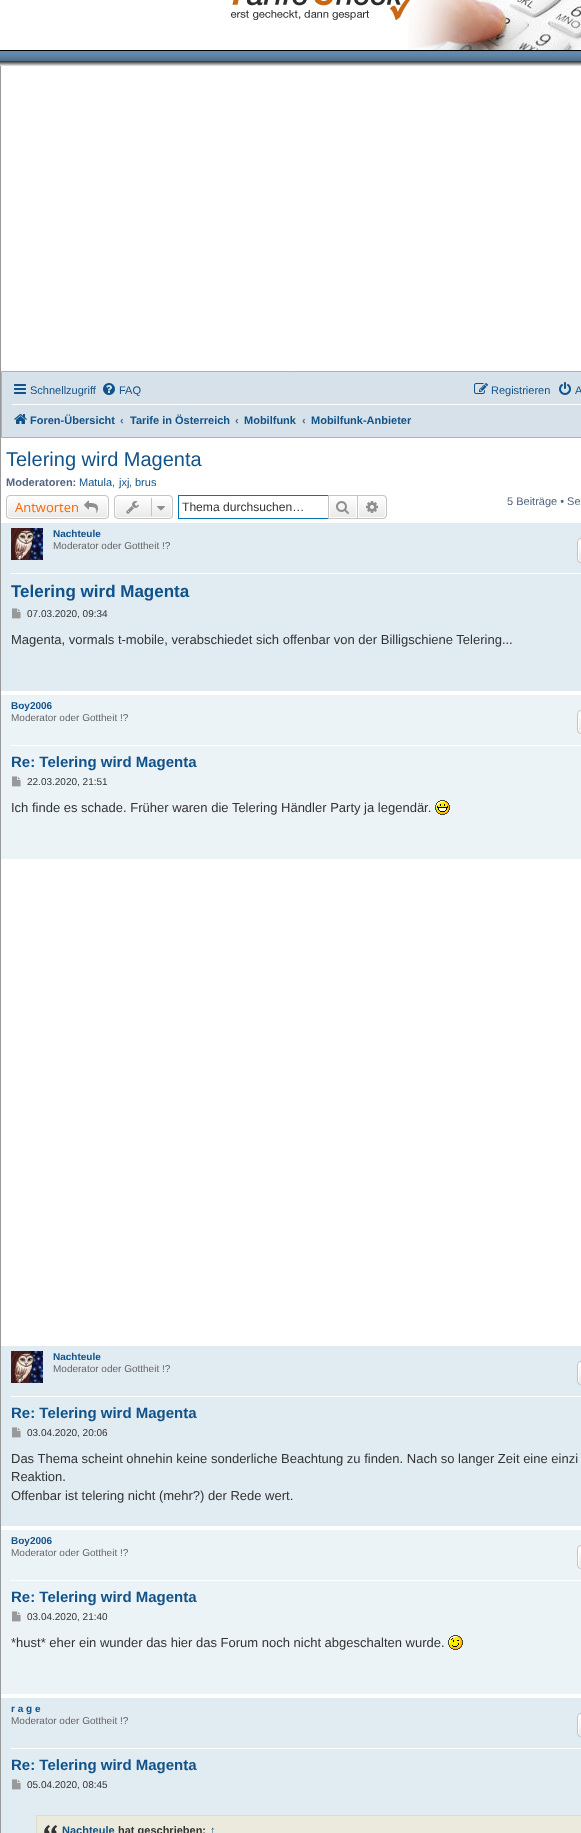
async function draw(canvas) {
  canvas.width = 581;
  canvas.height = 1833;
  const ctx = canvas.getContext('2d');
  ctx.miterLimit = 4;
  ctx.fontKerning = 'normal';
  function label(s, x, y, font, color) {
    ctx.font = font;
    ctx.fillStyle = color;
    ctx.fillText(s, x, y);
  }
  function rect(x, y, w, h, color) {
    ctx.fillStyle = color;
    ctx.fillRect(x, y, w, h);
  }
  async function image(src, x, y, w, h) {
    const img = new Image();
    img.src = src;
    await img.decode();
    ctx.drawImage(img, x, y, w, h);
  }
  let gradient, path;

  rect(0, 0, 581, 1833, '#fff');
  rect(0, 66, 1, 1767, '#999');
  await image('assets/img1.png', 408, 0, 173, 50);
  await image('assets/img2.png', 0, 50, 581, 16);
  await image('assets/img3.png', 231, 0, 179, 20);
  ctx.fillStyle = '#d7e1ea';
  ctx.beginPath();
  ctx.rect(1.5, 371.5, 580, 66);
  ctx.fill();
  ctx.strokeStyle = '#9cb5cc';
  ctx.stroke();
  await image('assets/img4.png', 14, 384, 12, 10);
  label('Schnellzugriff', 30, 394, '11px Liberation Sans', '#105289');
  await image('assets/img5.png', 103, 383, 12, 12);
  label('FAQ', 119, 394, '11px Liberation Sans', '#105289');
  await image('assets/img6.png', 474, 383, 14, 11);
  label('Registrieren', 491, 394, '11px Liberation Sans', '#105289');
  await image('assets/img7.png', 559, 382, 12, 13);
  label('A', 575, 394, '11px Liberation Sans', '#105289');
  rect(12, 404, 569, 1, '#fff');
  await image('assets/img8.png', 14, 414, 13, 10);
  label('Foren-Übersicht', 30, 424, 'bold 11px Liberation Sans', '#105289');
  label('‹', 120, 424, 'bold 11px Liberation Sans', '#536482');
  label('Tarife in Österreich', 130, 424, 'bold 11px Liberation Sans', '#105289');
  label('‹', 235, 424, 'bold 11px Liberation Sans', '#536482');
  label('Mobilfunk', 244, 424, 'bold 11px Liberation Sans', '#105289');
  label('‹', 302, 424, 'bold 11px Liberation Sans', '#536482');
  label('Mobilfunk-Anbieter', 311, 424, 'bold 11px Liberation Sans', '#105289');
  label('Telering wird Magenta', 6, 466, '20px Liberation Sans', '#105289');
  label('Moderatoren:', 6, 486, 'bold 11px Liberation Sans', '#536482');
  label('Matula', 79, 486, '11px Liberation Sans', '#105289');
  label(',', 112, 486, '11px Liberation Sans', '#536482');
  label('jxj', 119, 486, '11px Liberation Sans', '#105289');
  label(',', 129, 486, '11px Liberation Sans', '#536482');
  label('brus', 135, 486, '11px Liberation Sans', '#105289');
  ctx.save();
  ctx.beginPath();
  ctx.roundRect(6, 495, 103, 24, 4);
  ctx.clip();
  gradient = ctx.createLinearGradient(58, 496, 58, 518);
  gradient.addColorStop(0, '#fff');
  gradient.addColorStop(1, '#e9e9e9');
  ctx.fillStyle = gradient;
  ctx.fillRect(6, 496, 103, 22);
  ctx.restore();
  ctx.beginPath();
  ctx.roundRect(7.5, 496.5, 100, 21, 2.5);
  ctx.strokeStyle = '#fff';
  ctx.stroke();
  ctx.beginPath();
  ctx.roundRect(6.5, 495.5, 102, 23, 3.5);
  ctx.strokeStyle = '#c7c3bf';
  ctx.stroke();
  label('Antworten', 15, 512, '13px Open Sans', '#f60');
  await image('assets/img9.png', 84, 500, 14, 13);
  ctx.save();
  ctx.beginPath();
  ctx.roundRect(114, 495, 59, 24, 4);
  ctx.clip();
  gradient = ctx.createLinearGradient(144, 496, 144, 518);
  gradient.addColorStop(0, '#fff');
  gradient.addColorStop(1, '#e9e9e9');
  ctx.fillStyle = gradient;
  ctx.fillRect(114, 496, 59, 22);
  ctx.restore();
  ctx.beginPath();
  ctx.roundRect(115.5, 496.5, 56, 21, 2.5);
  ctx.strokeStyle = '#fff';
  ctx.stroke();
  ctx.beginPath();
  ctx.roundRect(114.5, 495.5, 58, 23, 3.5);
  ctx.strokeStyle = '#c7c3bf';
  ctx.stroke();
  await image('assets/img10.png', 126, 501, 13, 13);
  rect(151, 498, 1, 18, '#c7c3bf');
  await image('assets/img11.png', 157, 506, 8, 5);
  rect(178, 495, 150, 1, '#0075b0');
  rect(178, 518, 150, 1, '#0075b0');
  rect(178, 495, 1, 24, '#0075b0');
  label('Thema durchsuchen…', 182, 511, '12.1px Liberation Sans', '#333');
  gradient = ctx.createLinearGradient(343, 496, 343, 518);
  gradient.addColorStop(0, '#fff');
  gradient.addColorStop(1, '#e9e9e9');
  ctx.fillStyle = gradient;
  ctx.fillRect(330, 499, 26, 18);
  ctx.strokeRect(328.5, 495.5, 29, 23);
  await image('assets/img12.png', 336, 501, 13, 13);
  gradient = ctx.createLinearGradient(372, 496, 372, 518);
  gradient.addColorStop(0, '#fff');
  gradient.addColorStop(1, '#e9e9e9');
  ctx.fillStyle = gradient;
  ctx.beginPath();
  ctx.roundRect(358.5, 496.5, 27, 21, [0, 2.5, 2.5, 0]);
  ctx.fill();
  ctx.strokeStyle = '#fff';
  ctx.stroke();
  ctx.fillStyle = '#c7c3bf';
  path = new Path2D('M358 495H383C385 495 387 497 387 499V515C387 517 385 519 383 519H358ZM358 496H383C384.5 496 386 497.5 386 499V515C386 516.5 384.5 518 383 518H358Z');
  ctx.fill(path, 'evenodd');
  await image('assets/img13.png', 366, 501, 12, 12);
  label('5 Beiträge • Se', 507, 505, '11px Liberation Sans', '#536482');
  rect(1, 523, 580, 168, '#e1ebf2');
  rect(11, 573, 570, 1, '#fff');
  await image('assets/img14.png', 11, 528, 32, 32);
  label('Nachteule', 53, 537, 'bold 10px Liberation Sans', '#105289');
  label('Moderator oder Gottheit !?', 53, 549, '10px Liberation Sans', '#666');
  ctx.save();
  ctx.beginPath();
  ctx.roundRect(577, 538, 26, 25, 4);
  ctx.clip();
  gradient = ctx.createLinearGradient(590, 539, 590, 562);
  gradient.addColorStop(0, '#fff');
  gradient.addColorStop(1, '#e9e9e9');
  ctx.fillStyle = gradient;
  ctx.fillRect(577, 539, 4, 23);
  ctx.restore();
  ctx.beginPath();
  ctx.roundRect(578.5, 539.5, 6, 22, 2.5);
  ctx.stroke();
  ctx.beginPath();
  ctx.roundRect(577.5, 538.5, 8, 24, 3.5);
  ctx.strokeStyle = '#c7c3bf';
  ctx.stroke();
  label('Telering wird Magenta', 11, 597, 'bold 17px Liberation Sans', '#105289');
  await image('assets/img15.png', 12, 608, 9, 11);
  label('07.03.2020, 09:34', 27, 617, '10px Liberation Sans', '#333');
  label('Magenta, vormals t-mobile, verabschiedet sich offenbar von der Billigschiene Telering...', 11, 644, '13px Liberation Sans', '#333');
  rect(1, 695, 580, 164, '#ecf3f7');
  rect(11, 745, 570, 1, '#fff');
  label('Boy2006', 11, 709, 'bold 10px Liberation Sans', '#105289');
  label('Moderator oder Gottheit !?', 11, 721, '10px Liberation Sans', '#666');
  ctx.save();
  ctx.beginPath();
  ctx.roundRect(577, 710, 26, 24, 4);
  ctx.clip();
  gradient = ctx.createLinearGradient(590, 711, 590, 733);
  gradient.addColorStop(0, '#fff');
  gradient.addColorStop(1, '#e9e9e9');
  ctx.fillStyle = gradient;
  ctx.fillRect(577, 711, 4, 22);
  ctx.restore();
  ctx.beginPath();
  ctx.roundRect(578.5, 711.5, 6, 21, 2.5);
  ctx.strokeStyle = '#fff';
  ctx.stroke();
  ctx.beginPath();
  ctx.roundRect(577.5, 710.5, 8, 23, 3.5);
  ctx.strokeStyle = '#c7c3bf';
  ctx.stroke();
  label('Re: Telering wird Magenta', 11, 767, 'bold 15px Liberation Sans', '#105289');
  await image('assets/img16.png', 12, 776, 9, 11);
  label('22.03.2020, 21:51', 27, 785, '10px Liberation Sans', '#333');
  label('Ich finde es schade. Früher waren die Telering Händler Party ja legendär.', 11, 812, '13px Liberation Sans', '#333');
  await image('assets/img17.png', 435, 800, 15, 15);
  rect(1, 1346, 580, 180, '#e1ebf2');
  rect(11, 1396, 570, 1, '#fff');
  await image('assets/img14.png', 11, 1351, 32, 32);
  label('Nachteule', 53, 1360, 'bold 10px Liberation Sans', '#105289');
  label('Moderator oder Gottheit !?', 53, 1372, '10px Liberation Sans', '#666');
  ctx.save();
  ctx.beginPath();
  ctx.roundRect(577, 1361, 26, 24, 4);
  ctx.clip();
  gradient = ctx.createLinearGradient(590, 1362, 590, 1384);
  gradient.addColorStop(0, '#fff');
  gradient.addColorStop(1, '#e9e9e9');
  ctx.fillStyle = gradient;
  ctx.fillRect(577, 1362, 4, 22);
  ctx.restore();
  ctx.beginPath();
  ctx.roundRect(578.5, 1362.5, 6, 21, 2.5);
  ctx.strokeStyle = '#fff';
  ctx.stroke();
  ctx.beginPath();
  ctx.roundRect(577.5, 1361.5, 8, 23, 3.5);
  ctx.strokeStyle = '#c7c3bf';
  ctx.stroke();
  label('Re: Telering wird Magenta', 11, 1418, 'bold 15px Liberation Sans', '#105289');
  await image('assets/img15.png', 12, 1427, 9, 11);
  label('03.04.2020, 20:06', 27, 1436, '10px Liberation Sans', '#333');
  label('Das Thema scheint ohnehin keine sonderliche Beachtung zu finden. Nach so langer Zeit eine einzi', 11, 1463, '13px Liberation Sans', '#333');
  label('Reaktion.', 11, 1481, '13px Liberation Sans', '#333');
  label('Offenbar ist telering nicht (mehr?) der Rede wert.', 11, 1500, '13px Liberation Sans', '#333');
  rect(1, 1530, 580, 164, '#ecf3f7');
  rect(11, 1580, 570, 1, '#fff');
  label('Boy2006', 11, 1544, 'bold 10px Liberation Sans', '#105289');
  label('Moderator oder Gottheit !?', 11, 1556, '10px Liberation Sans', '#666');
  ctx.save();
  ctx.beginPath();
  ctx.roundRect(577, 1545, 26, 24, 4);
  ctx.clip();
  gradient = ctx.createLinearGradient(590, 1546, 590, 1568);
  gradient.addColorStop(0, '#fff');
  gradient.addColorStop(1, '#e9e9e9');
  ctx.fillStyle = gradient;
  ctx.fillRect(577, 1546, 4, 22);
  ctx.restore();
  ctx.beginPath();
  ctx.roundRect(578.5, 1546.5, 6, 21, 2.5);
  ctx.strokeStyle = '#fff';
  ctx.stroke();
  ctx.beginPath();
  ctx.roundRect(577.5, 1545.5, 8, 23, 3.5);
  ctx.strokeStyle = '#c7c3bf';
  ctx.stroke();
  label('Re: Telering wird Magenta', 11, 1602, 'bold 15px Liberation Sans', '#105289');
  await image('assets/img16.png', 12, 1611, 9, 11);
  label('03.04.2020, 21:40', 27, 1620, '10px Liberation Sans', '#333');
  label('*hust* eher ein wunder das hier das Forum noch nicht abgeschalten wurde.', 11, 1647, '13px Liberation Sans', '#333');
  await image('assets/img18.png', 448, 1635, 15, 15);
  rect(1, 1698, 580, 135, '#e1ebf2');
  rect(11, 1748, 570, 1, '#fff');
  label('r a g e', 11, 1712, 'bold 10px Liberation Sans', '#105289');
  label('Moderator oder Gottheit !?', 11, 1724, '10px Liberation Sans', '#666');
  ctx.save();
  ctx.beginPath();
  ctx.roundRect(577, 1713, 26, 24, 4);
  ctx.clip();
  gradient = ctx.createLinearGradient(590, 1714, 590, 1736);
  gradient.addColorStop(0, '#fff');
  gradient.addColorStop(1, '#e9e9e9');
  ctx.fillStyle = gradient;
  ctx.fillRect(577, 1714, 4, 22);
  ctx.restore();
  ctx.beginPath();
  ctx.roundRect(578.5, 1714.5, 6, 21, 2.5);
  ctx.strokeStyle = '#fff';
  ctx.stroke();
  ctx.beginPath();
  ctx.roundRect(577.5, 1713.5, 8, 23, 3.5);
  ctx.strokeStyle = '#c7c3bf';
  ctx.stroke();
  label('Re: Telering wird Magenta', 11, 1770, 'bold 15px Liberation Sans', '#105289');
  await image('assets/img15.png', 12, 1779, 9, 11);
  label('05.04.2020, 08:45', 27, 1788, '10px Liberation Sans', '#333');
  rect(37, 1816, 544, 17, '#ebeadd');
  await image('assets/img19.png', 44, 1825, 14, 8);
  ctx.strokeStyle = '#dbdbce';
  ctx.strokeRect(36.5, 1815.5, 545, 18);
  label('Nachteule', 62, 1834, 'bold 11px Liberation Sans', '#105289');
  label('hat geschrieben:', 118, 1834, 'bold 11px Liberation Sans', '#333');
  label('↑', 210, 1834, 'bold 11px Liberation Sans', '#105289');
}

draw(document.querySelector('canvas'));
